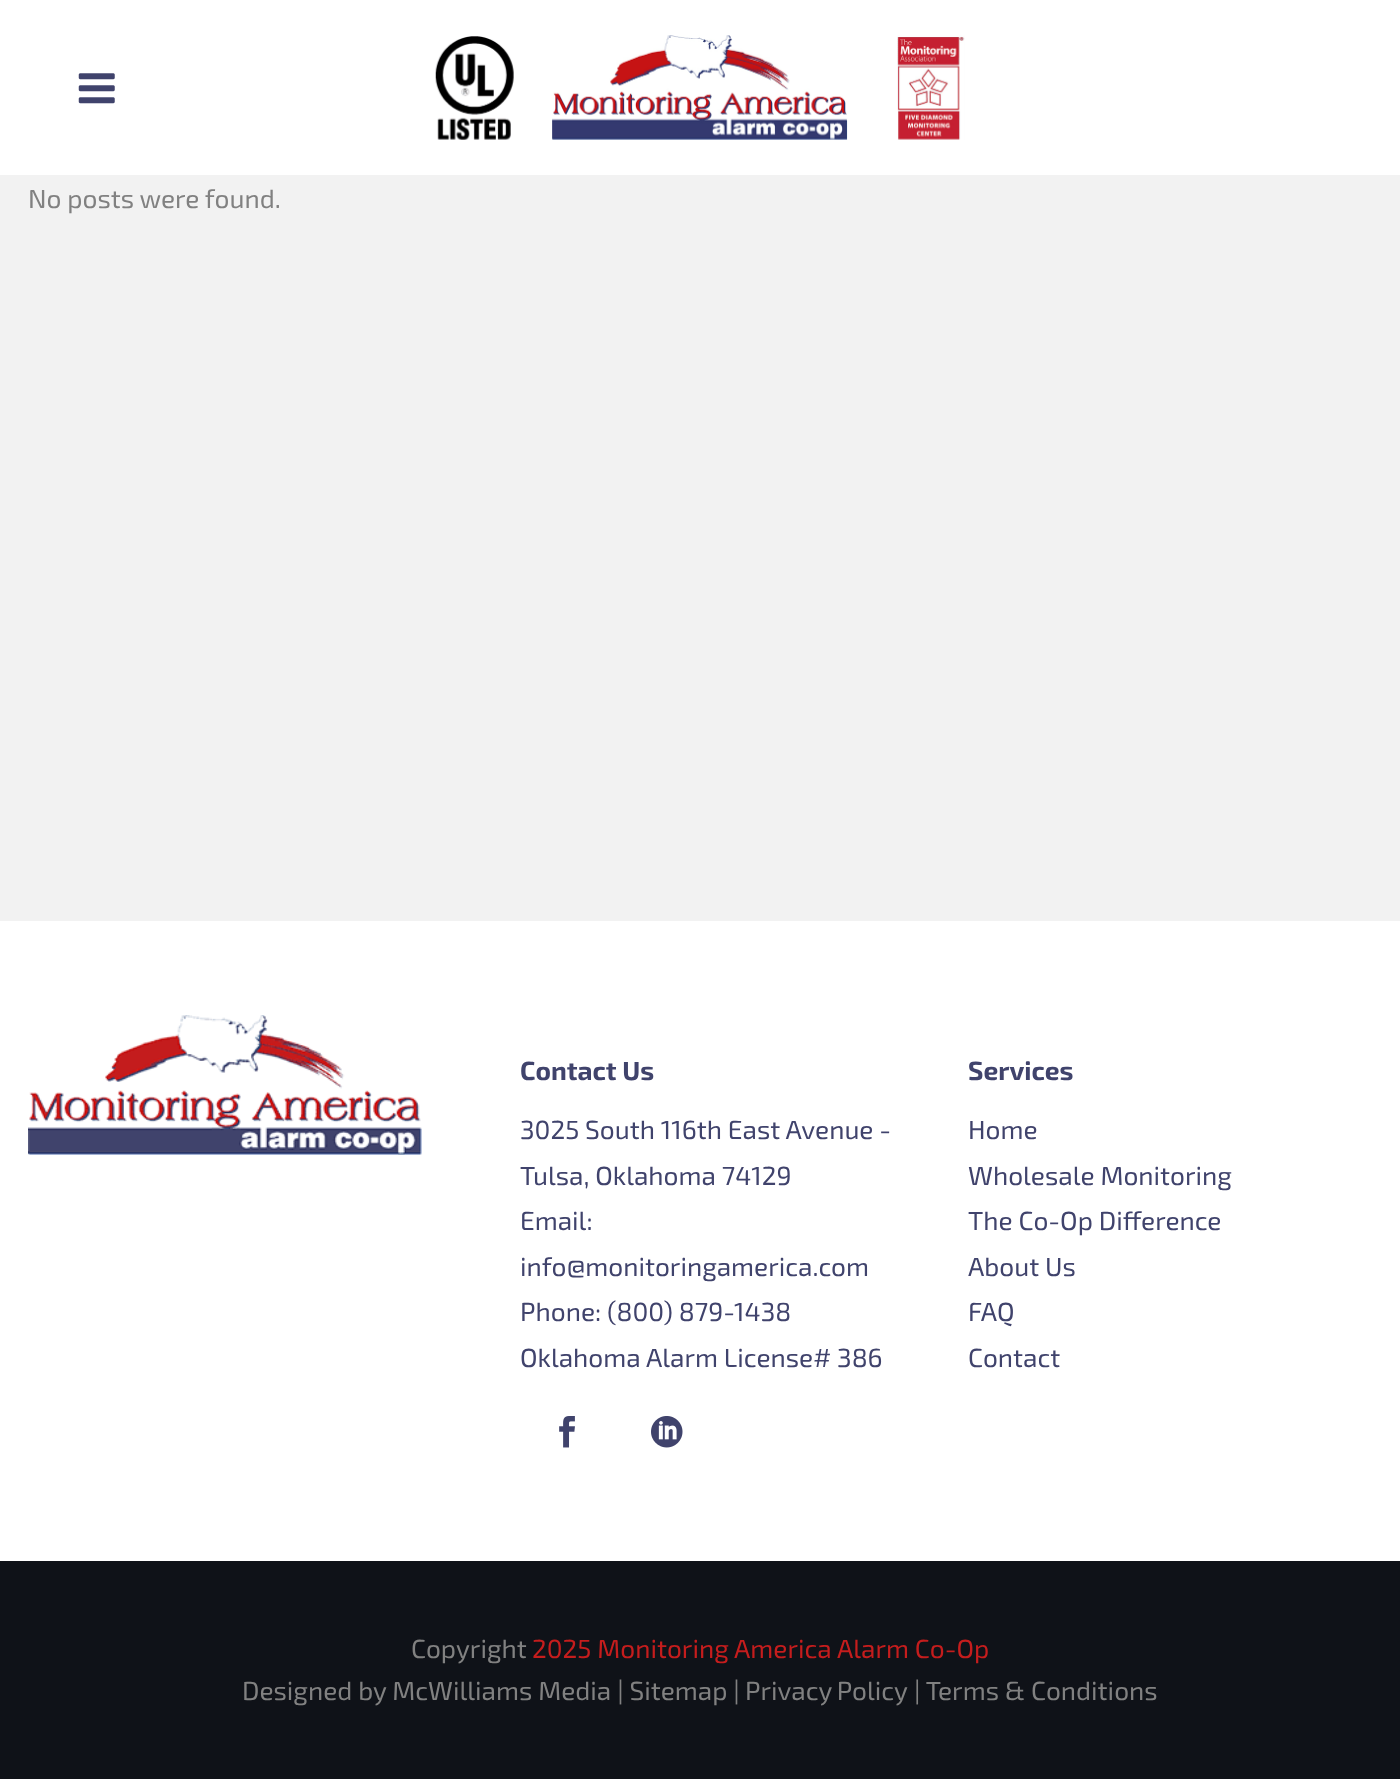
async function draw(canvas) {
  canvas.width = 1400;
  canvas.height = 1779;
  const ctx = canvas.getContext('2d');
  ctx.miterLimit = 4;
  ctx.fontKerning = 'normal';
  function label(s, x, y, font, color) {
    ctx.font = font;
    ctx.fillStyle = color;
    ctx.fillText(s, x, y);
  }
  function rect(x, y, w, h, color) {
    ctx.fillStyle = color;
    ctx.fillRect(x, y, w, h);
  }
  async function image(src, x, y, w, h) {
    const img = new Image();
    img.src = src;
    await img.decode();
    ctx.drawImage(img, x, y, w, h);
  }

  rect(0, 0, 1400, 1779, '#f2f2f2');
  rect(0, 0, 1400, 175, '#fff');
  await image('assets/img1.png', 78, 73, 37, 31);
  await image('assets/img2.png', 435, 35, 530, 105);
  label('No posts were found.', 28, 208, '26.25px "Exo 2"', '#818181');
  rect(0, 921, 1400, 640, '#fff');
  await image('assets/img3.png', 28, 1015, 394, 140);
  label('Contact Us', 520, 1080, 'bold 26.25px "Exo 2"', '#40436c');
  label('3025 South 116th East Avenue -', 520, 1139, '26.25px "Exo 2"', '#40436c');
  label('Tulsa, Oklahoma 74129', 520, 1185, '26.25px "Exo 2"', '#40436c');
  label('Email:', 520, 1230, '26.25px "Exo 2"', '#40436c');
  label('info@monitoringamerica.com', 520, 1276, '26.25px "Exo 2"', '#40436c');
  label('Phone: (800) 879-1438', 520, 1321, '26.25px "Exo 2"', '#40436c');
  label('Oklahoma Alarm License# 386', 520, 1367, '26.25px "Exo 2"', '#40436c');
  await image('assets/img4.png', 559, 1416, 16, 32);
  await image('assets/img5.png', 651, 1416, 32, 32);
  label('Services', 968, 1080, 'bold 26.25px "Exo 2"', '#40436c');
  label('Home', 968, 1139, '26.25px "Exo 2"', '#40436c');
  label('Wholesale Monitoring', 968, 1185, '26.25px "Exo 2"', '#40436c');
  label('The Co-Op Difference', 968, 1230, '26.25px "Exo 2"', '#40436c');
  label('About Us', 968, 1276, '26.25px "Exo 2"', '#40436c');
  label('FAQ', 968, 1321, '26.25px "Exo 2"', '#40436c');
  label('Contact', 968, 1367, '26.25px "Exo 2"', '#40436c');
  rect(0, 1561, 1400, 218, '#0f1218');
  label('2025 Monitoring America Alarm Co-Op', 532, 1658, '26.25px "Exo 2"', '#c51d1d');
  label('Designed by McWilliams Media | Sitemap |', 242, 1700, '26.25px "Exo 2"', '#818181');
  ctx.wordSpacing = '-1px';
  label('Privacy Policy', 745, 1700, '26.25px "Exo 2"', '#818181');
  ctx.wordSpacing = '0px';
  label('| Terms & Conditions', 914, 1700, '26.25px "Exo 2"', '#818181');
  label('Copyright', 411, 1658, '26.25px "Exo 2"', '#818181');
}

draw(document.querySelector('canvas'));
